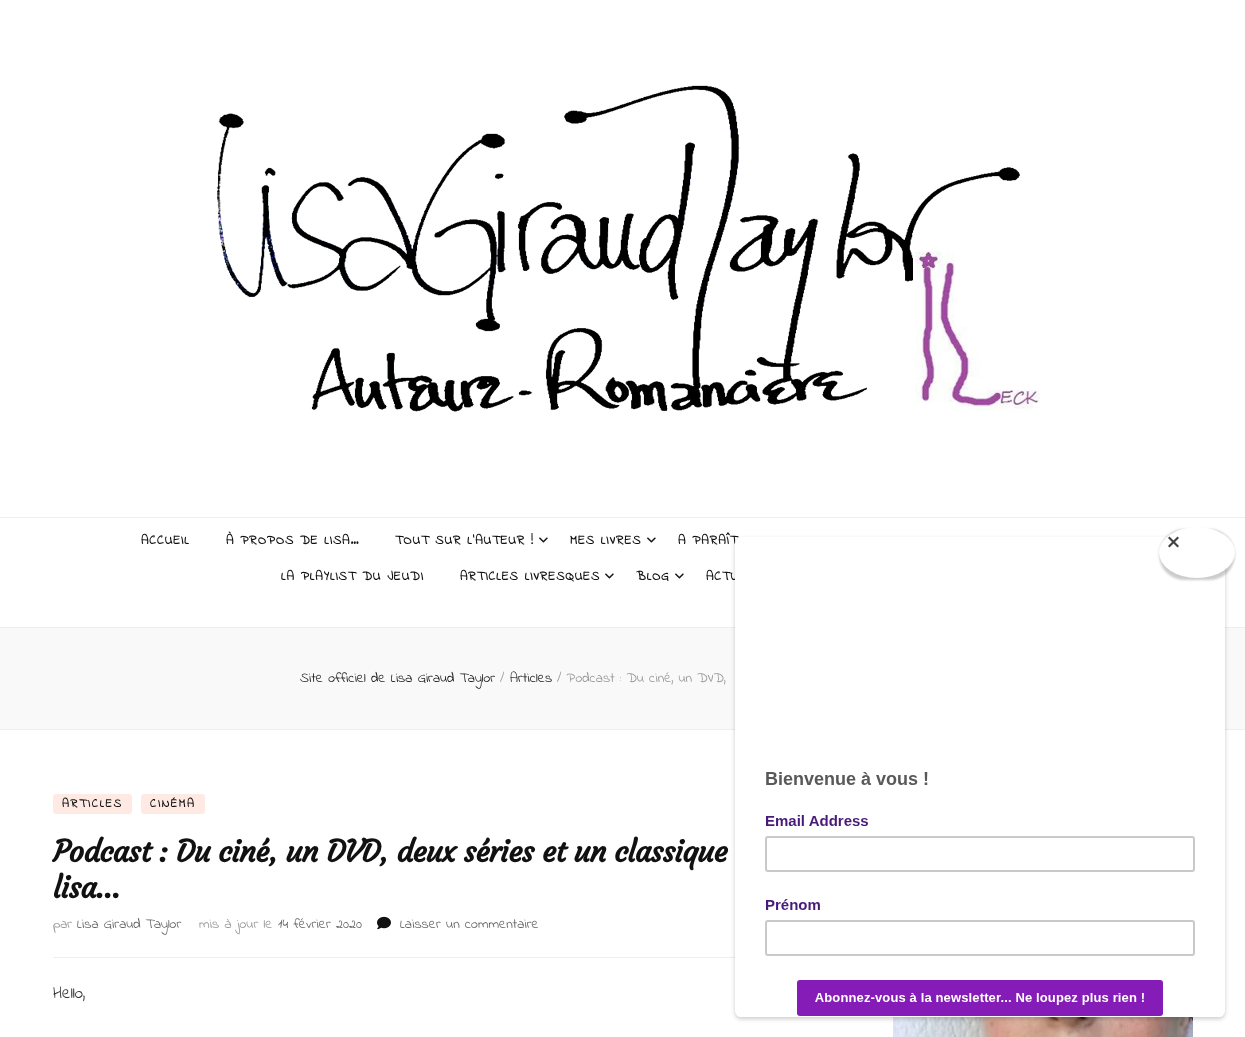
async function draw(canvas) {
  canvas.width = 1245;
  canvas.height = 1037;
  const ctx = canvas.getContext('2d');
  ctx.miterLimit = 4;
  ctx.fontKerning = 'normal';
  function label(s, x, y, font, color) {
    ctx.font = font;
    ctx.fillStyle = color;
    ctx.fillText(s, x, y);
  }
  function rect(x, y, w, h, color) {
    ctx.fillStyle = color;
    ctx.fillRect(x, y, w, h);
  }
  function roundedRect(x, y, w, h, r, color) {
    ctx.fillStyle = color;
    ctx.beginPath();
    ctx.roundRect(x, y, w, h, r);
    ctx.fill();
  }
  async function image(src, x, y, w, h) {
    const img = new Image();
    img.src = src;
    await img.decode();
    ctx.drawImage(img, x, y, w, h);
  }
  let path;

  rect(0, 0, 1245, 1037, '#fff');
  await image('assets/img1.png', 217, 85, 823, 327);
  rect(0, 517, 1245, 1, '#eee');
  rect(0, 627, 1245, 1, '#eee');
  ctx.letterSpacing = '1px';
  label('ACCUEIL', 141, 544, 'bold 13px Indie Flower', '#111');
  label('À PROPOS DE LISA…', 226, 544, 'bold 13px Indie Flower', '#111');
  label('TOUT SUR L’AUTEUR !', 395, 544, 'bold 13px Indie Flower', '#111');
  await image('assets/img2.png', 539, 537, 9, 6);
  label('MES LIVRES', 570, 544, 'bold 13px Indie Flower', '#111');
  await image('assets/img2.png', 647, 537, 9, 6);
  label('A PARAÎT', 678, 544, 'bold 13px Indie Flower', '#111');
  label('LA PLAYLIST DU JEUDI', 281, 580, 'bold 13px Indie Flower', '#111');
  label('ARTICLES LIVRESQUES', 460, 580, 'bold 13px Indie Flower', '#111');
  await image('assets/img2.png', 605, 573, 9, 6);
  label('BLOG', 636, 580, 'bold 13px Indie Flower', '#111');
  await image('assets/img2.png', 675, 573, 9, 6);
  label('ACTU', 706, 580, 'bold 13px Indie Flower', '#111');
  rect(0, 628, 1245, 101, '#f9f9f9');
  rect(0, 729, 1245, 1, '#eee');
  ctx.letterSpacing = '0px';
  label('Site officiel de Lisa Giraud Taylor', 300, 682, '14px Indie Flower', '#222');
  label('/', 500, 682, '14px Indie Flower', '#999');
  label('Articles', 510, 682, '14px Indie Flower', '#222');
  label('/ Podcast : Du ciné, un DVD,', 557, 682, '14px Indie Flower', '#999');
  rect(53, 957, 682, 1, '#eee');
  roundedRect(53, 794, 79, 20, 3, '#feeae3');
  ctx.letterSpacing = '1.75px';
  label('ARTICLES', 62, 807, 'bold 12px Indie Flower', '#111');
  roundedRect(141, 794, 64, 20, 3, '#feeae3');
  label('CINÉMA', 150, 807, 'bold 12px Indie Flower', '#111');
  ctx.letterSpacing = '-0.75px';
  label('Podcast : Du ciné, un DVD, deux séries et un classique', 53, 862, 'bold 30px Courgette', '#111');
  label('lisa…', 53, 898, 'bold 30px Courgette', '#111');
  ctx.letterSpacing = '0px';
  label('par', 53, 928, '14px Indie Flower', '#999');
  label('Lisa Giraud Taylor', 77, 928, '14px Indie Flower', '#666');
  label('mis à jour le', 199, 928, '14px Indie Flower', '#999');
  label('14 février 2020', 278, 928, '14px Indie Flower', '#666');
  await image('assets/img3.png', 377, 916, 14, 14);
  label('Laisser un commentaire', 400, 928, '14px Indie Flower', '#666');
  label('Hello,', 53, 998, '17px Indie Flower', '#333');
  await image('assets/img4.png', 893, 1017, 300, 20);
  ctx.fillStyle = '#00000033';
  ctx.filter = 'blur(2px)';
  ctx.beginPath();
  ctx.roundRect(735, 539, 490, 480, 6);
  ctx.fill();
  ctx.filter = 'none';
  roundedRect(735, 537, 490, 480, 6, '#fff');
  await image('assets/img5.png', 738, 537, 484, 480);
  ctx.fillStyle = '#00000033';
  ctx.filter = 'blur(1px)';
  ctx.beginPath();
  ctx.roundRect(1159, 529, 76, 51, 25.5);
  ctx.fill();
  ctx.filter = 'none';
  ctx.fillStyle = '#fff';
  ctx.beginPath();
  ctx.ellipse(1197, 552.5, 38, 25.5, 0, 0, 2 * Math.PI);
  ctx.fill();
  ctx.fillStyle = '#414141';
  path = new Path2D('M1177.5 536.5L1179 538L1169.5 547.5L1168 546Z');
  ctx.fill(path);
  path = new Path2D('M1168 538L1169.5 536.5L1179 546L1177.5 547.5Z');
  ctx.fill(path);
}

draw(document.querySelector('canvas'));
